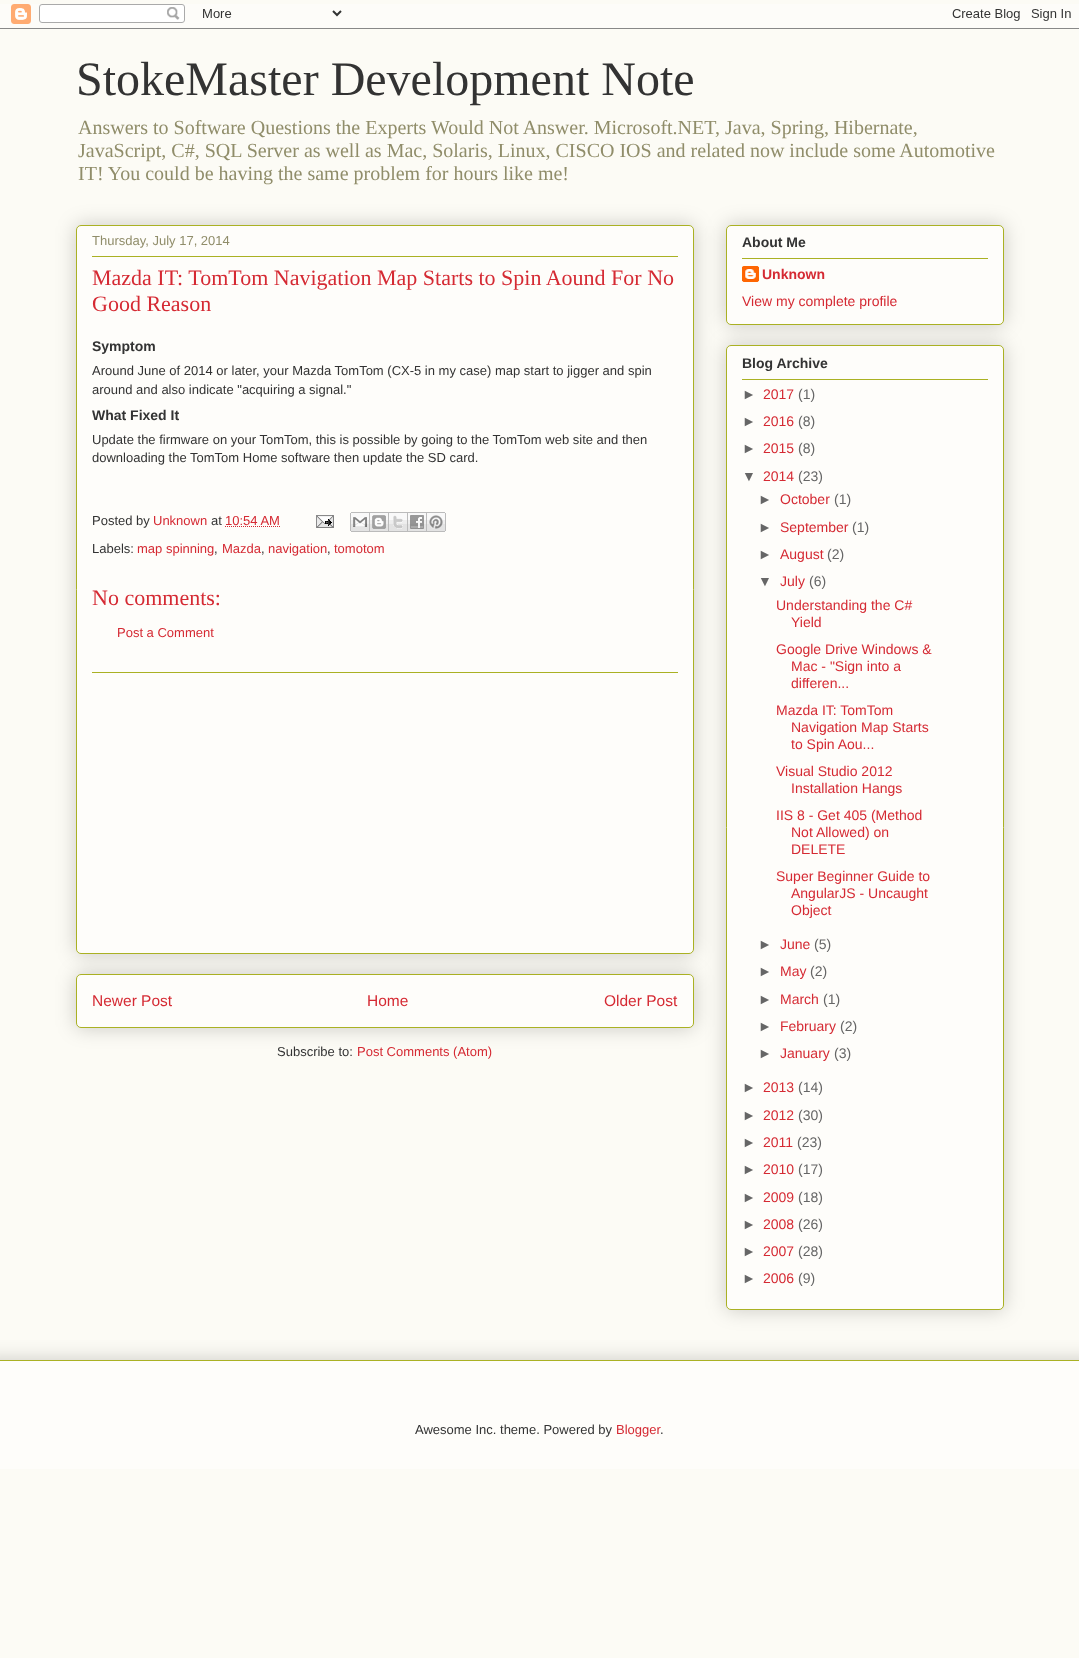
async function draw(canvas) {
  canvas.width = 1079;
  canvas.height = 1658;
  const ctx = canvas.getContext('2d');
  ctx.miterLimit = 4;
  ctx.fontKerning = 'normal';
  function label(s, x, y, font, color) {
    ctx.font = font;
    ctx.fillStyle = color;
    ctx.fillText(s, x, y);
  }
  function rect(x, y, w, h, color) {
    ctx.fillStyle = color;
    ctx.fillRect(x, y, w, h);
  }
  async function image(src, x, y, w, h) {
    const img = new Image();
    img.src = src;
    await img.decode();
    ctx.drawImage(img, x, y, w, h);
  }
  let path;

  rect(0, 0, 1079, 1658, '#fcfbf5');
  await image('assets/img1.png', 0, 4, 1079, 25);
  label('StokeMaster Development Note', 76, 95, '48px Liberation Serif', '#333');
  label('Answers to Software Questions the Experts Would Not Answer. Microsoft.NET, Java, Spring, Hibernate,', 78, 134, '20px Liberation Serif', '#908d6a');
  label('JavaScript, C#, SQL Server as well as Mac, Solaris, Linux, CISCO IOS and related now include some Automotive', 78, 157, '20px Liberation Serif', '#908d6a');
  label('IT! You could be having the same problem for hours like me!', 78, 180, '20px Liberation Serif', '#908d6a');
  ctx.fillStyle = '#00000033';
  ctx.filter = 'blur(10px)';
  ctx.beginPath();
  ctx.roundRect(76, 974, 618, 54, 5);
  ctx.fill();
  ctx.filter = 'none';
  ctx.fillStyle = '#fefdfa';
  ctx.beginPath();
  ctx.roundRect(76.5, 974.5, 617, 53, 4.5);
  ctx.fill();
  ctx.strokeStyle = '#aab123';
  ctx.stroke();
  ctx.fillStyle = '#00000033';
  ctx.filter = 'blur(10px)';
  ctx.beginPath();
  ctx.roundRect(76, 225, 618, 729, 5);
  ctx.fill();
  ctx.filter = 'none';
  ctx.fillStyle = '#fefdfa';
  ctx.beginPath();
  ctx.roundRect(76.5, 225.5, 617, 728, 4.5);
  ctx.fill();
  ctx.stroke();
  label('Thursday, July 17, 2014', 92, 245, '13px Liberation Sans', '#908d6a');
  rect(92, 256, 586, 1, '#aab123');
  label('Mazda IT: TomTom Navigation Map Starts to Spin Aound For No', 92, 285, '22px Liberation Serif', '#d52a33');
  label('Good Reason', 92, 311, '22px Liberation Serif', '#d52a33');
  label('Symptom', 92, 351, 'bold 14px Liberation Sans', '#333');
  label('Around June of 2014 or later, your Mazda TomTom (CX-5 in my case) map start to jigger and spin', 92, 375, '13px Liberation Sans', '#333');
  label('around and also indicate "acquiring a signal."', 92, 394, '13px Liberation Sans', '#333');
  label('What Fixed It', 92, 420, 'bold 14px Liberation Sans', '#333');
  label('Update the firmware on your TomTom, this is possible by going to the TomTom web site and then', 92, 444, '13px Liberation Sans', '#333');
  label('downloading the TomTom Home software then update the SD card.', 92, 462, '13px Liberation Sans', '#333');
  label('Posted by', 92, 525, '13px Liberation Sans', '#333');
  label('Unknown', 153, 525, '13px Liberation Sans', '#d52a33');
  label('at', 211, 525, '13px Liberation Sans', '#333');
  label('10:54 AM', 225, 525, '13px Liberation Sans', '#d52a33');
  path = new Path2D('M225 526.5H280');
  ctx.strokeStyle = '#d52a33';
  ctx.setLineDash([1, 1]);
  ctx.stroke(path);
  await image('assets/img2.png', 316, 515, 18, 13);
  await image('assets/img3.png', 350, 512, 20, 20);
  await image('assets/img4.png', 370, 512, 19, 20);
  await image('assets/img5.png', 389, 512, 19, 20);
  await image('assets/img6.png', 408, 512, 19, 20);
  await image('assets/img7.png', 427, 512, 19, 20);
  label('Labels:', 92, 553, '13px Liberation Sans', '#333');
  label('map spinning', 137, 553, '13px Liberation Sans', '#d52a33');
  label(',', 214, 553, '13px Liberation Sans', '#333');
  label('Mazda', 222, 553, '13px Liberation Sans', '#d52a33');
  label(',', 261, 553, '13px Liberation Sans', '#333');
  label('navigation', 268, 553, '13px Liberation Sans', '#d52a33');
  label(',', 327, 553, '13px Liberation Sans', '#333');
  label('tomotom', 334, 553, '13px Liberation Sans', '#d52a33');
  label('No comments:', 92, 605, '22px Liberation Serif', '#d52a33');
  label('Post a Comment', 117, 637, '13px Liberation Sans', '#d52a33');
  rect(92, 672, 586, 1, '#aab123');
  label('Newer Post', 92, 1006, '15.5px Liberation Sans', '#d52a33');
  label('Home', 367, 1006, '15.5px Liberation Sans', '#d52a33');
  label('Older Post', 604, 1006, '15.5px Liberation Sans', '#d52a33');
  label('Subscribe to:', 277, 1056, '13px Liberation Sans', '#333');
  label('Post Comments (Atom)', 357, 1056, '13px Liberation Sans', '#d52a33');
  ctx.fillStyle = '#00000033';
  ctx.filter = 'blur(10px)';
  ctx.beginPath();
  ctx.roundRect(726, 225, 278, 100, 5);
  ctx.fill();
  ctx.filter = 'none';
  ctx.fillStyle = '#fefdfa';
  ctx.beginPath();
  ctx.roundRect(726.5, 225.5, 277, 99, 4.5);
  ctx.fill();
  ctx.strokeStyle = '#aab123';
  ctx.setLineDash([]);
  ctx.stroke();
  label('About Me', 742, 247, 'bold 14px Liberation Sans', '#333');
  rect(742, 258, 246, 1, '#aab123');
  await image('assets/img8.png', 742, 266, 17, 16);
  label('Unknown', 762, 279, 'bold 14px Liberation Sans', '#d52a33');
  label('View my complete profile', 742, 306, '14px Liberation Sans', '#d52a33');
  ctx.fillStyle = '#00000033';
  ctx.filter = 'blur(10px)';
  ctx.beginPath();
  ctx.roundRect(726, 345, 278, 965, 5);
  ctx.fill();
  ctx.filter = 'none';
  ctx.fillStyle = '#fefdfa';
  ctx.beginPath();
  ctx.roundRect(726.5, 345.5, 277, 964, 4.5);
  ctx.fill();
  ctx.stroke();
  label('Blog Archive', 742, 368, 'bold 14px Liberation Sans', '#333');
  rect(742, 379, 246, 1, '#aab123');
  label('►', 742, 399, '14px Liberation Sans', '#666');
  label('2017', 763, 399, '14px Liberation Sans', '#d52a33');
  label('(1)', 798, 399, '14px Liberation Sans', '#666');
  label('►', 742, 426, '14px Liberation Sans', '#666');
  label('2016', 763, 426, '14px Liberation Sans', '#d52a33');
  label('(8)', 798, 426, '14px Liberation Sans', '#666');
  label('►', 742, 453, '14px Liberation Sans', '#666');
  label('2015', 763, 453, '14px Liberation Sans', '#d52a33');
  label('(8)', 798, 453, '14px Liberation Sans', '#666');
  label('▼', 742, 481, '14px Liberation Sans', '#666');
  label('2014', 763, 481, '14px Liberation Sans', '#d52a33');
  label('(23)', 798, 481, '14px Liberation Sans', '#666');
  label('►', 758, 504, '14px Liberation Sans', '#666');
  label('October', 780, 504, '14px Liberation Sans', '#d52a33');
  label('(1)', 834, 504, '14px Liberation Sans', '#666');
  label('►', 758, 532, '14px Liberation Sans', '#666');
  label('September', 780, 532, '14px Liberation Sans', '#d52a33');
  label('(1)', 852, 532, '14px Liberation Sans', '#666');
  label('►', 758, 559, '14px Liberation Sans', '#666');
  label('August', 780, 559, '14px Liberation Sans', '#d52a33');
  label('(2)', 827, 559, '14px Liberation Sans', '#666');
  label('▼', 758, 586, '14px Liberation Sans', '#666');
  label('July', 780, 586, '14px Liberation Sans', '#d52a33');
  label('(6)', 809, 586, '14px Liberation Sans', '#666');
  label('Understanding the C#', 776, 610, '14px Liberation Sans', '#d52a33');
  label('Yield', 791, 627, '14px Liberation Sans', '#d52a33');
  label('Google Drive Windows &', 776, 654, '14px Liberation Sans', '#d52a33');
  label('Mac - "Sign into a', 791, 671, '14px Liberation Sans', '#d52a33');
  label('differen...', 791, 688, '14px Liberation Sans', '#d52a33');
  label('Mazda IT: TomTom', 776, 715, '14px Liberation Sans', '#d52a33');
  label('Navigation Map Starts', 791, 732, '14px Liberation Sans', '#d52a33');
  label('to Spin Aou...', 791, 749, '14px Liberation Sans', '#d52a33');
  label('Visual Studio 2012', 776, 776, '14px Liberation Sans', '#d52a33');
  label('Installation Hangs', 791, 793, '14px Liberation Sans', '#d52a33');
  label('IIS 8 - Get 405 (Method', 776, 820, '14px Liberation Sans', '#d52a33');
  label('Not Allowed) on', 791, 837, '14px Liberation Sans', '#d52a33');
  label('DELETE', 791, 854, '14px Liberation Sans', '#d52a33');
  label('Super Beginner Guide to', 776, 881, '14px Liberation Sans', '#d52a33');
  label('AngularJS - Uncaught', 791, 898, '14px Liberation Sans', '#d52a33');
  label('Object', 791, 915, '14px Liberation Sans', '#d52a33');
  label('►', 758, 949, '14px Liberation Sans', '#666');
  label('June', 780, 949, '14px Liberation Sans', '#d52a33');
  label('(5)', 814, 949, '14px Liberation Sans', '#666');
  label('►', 758, 976, '14px Liberation Sans', '#666');
  label('May', 780, 976, '14px Liberation Sans', '#d52a33');
  label('(2)', 810, 976, '14px Liberation Sans', '#666');
  label('►', 758, 1004, '14px Liberation Sans', '#666');
  label('March', 780, 1004, '14px Liberation Sans', '#d52a33');
  label('(1)', 823, 1004, '14px Liberation Sans', '#666');
  label('►', 758, 1031, '14px Liberation Sans', '#666');
  label('February', 780, 1031, '14px Liberation Sans', '#d52a33');
  label('(2)', 840, 1031, '14px Liberation Sans', '#666');
  label('►', 758, 1058, '14px Liberation Sans', '#666');
  label('January', 780, 1058, '14px Liberation Sans', '#d52a33');
  label('(3)', 834, 1058, '14px Liberation Sans', '#666');
  label('►', 742, 1092, '14px Liberation Sans', '#666');
  label('2013', 763, 1092, '14px Liberation Sans', '#d52a33');
  label('(14)', 798, 1092, '14px Liberation Sans', '#666');
  label('►', 742, 1120, '14px Liberation Sans', '#666');
  label('2012', 763, 1120, '14px Liberation Sans', '#d52a33');
  label('(30)', 798, 1120, '14px Liberation Sans', '#666');
  label('►', 742, 1147, '14px Liberation Sans', '#666');
  label('2011', 763, 1147, '14px Liberation Sans', '#d52a33');
  label('(23)', 797, 1147, '14px Liberation Sans', '#666');
  label('►', 742, 1174, '14px Liberation Sans', '#666');
  label('2010', 763, 1174, '14px Liberation Sans', '#d52a33');
  label('(17)', 798, 1174, '14px Liberation Sans', '#666');
  label('►', 742, 1202, '14px Liberation Sans', '#666');
  label('2009', 763, 1202, '14px Liberation Sans', '#d52a33');
  label('(18)', 798, 1202, '14px Liberation Sans', '#666');
  label('►', 742, 1229, '14px Liberation Sans', '#666');
  label('2008', 763, 1229, '14px Liberation Sans', '#d52a33');
  label('(26)', 798, 1229, '14px Liberation Sans', '#666');
  label('►', 742, 1256, '14px Liberation Sans', '#666');
  label('2007', 763, 1256, '14px Liberation Sans', '#d52a33');
  label('(28)', 798, 1256, '14px Liberation Sans', '#666');
  label('►', 742, 1283, '14px Liberation Sans', '#666');
  label('2006', 763, 1283, '14px Liberation Sans', '#d52a33');
  label('(9)', 798, 1283, '14px Liberation Sans', '#666');
  ctx.save();
  ctx.beginPath();
  ctx.rect(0, 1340, 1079, 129);
  ctx.clip();
  ctx.fillStyle = '#00000033';
  ctx.filter = 'blur(10px)';
  ctx.beginPath();
  ctx.rect(-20, 1360, 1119, 109);
  ctx.fill();
  ctx.filter = 'none';
  ctx.restore();
  rect(0, 1361, 1079, 108, '#fefdfa');
  rect(0, 1360, 1079, 1, '#aab123');
  label('Awesome Inc. theme. Powered by', 415, 1434, '13px Liberation Sans', '#333');
  label('Blogger', 616, 1434, '13px Liberation Sans', '#d52a33');
  label('.', 660, 1434, '13px Liberation Sans', '#333');
}

draw(document.querySelector('canvas'));
